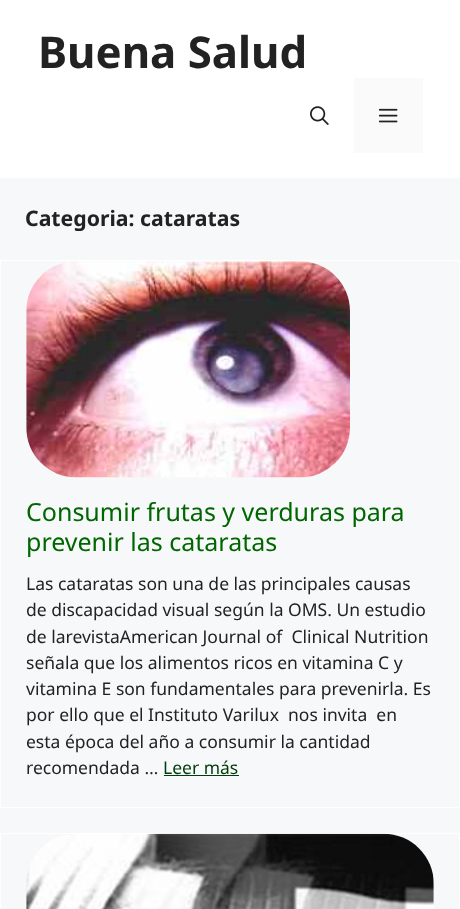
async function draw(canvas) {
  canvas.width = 460;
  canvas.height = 909;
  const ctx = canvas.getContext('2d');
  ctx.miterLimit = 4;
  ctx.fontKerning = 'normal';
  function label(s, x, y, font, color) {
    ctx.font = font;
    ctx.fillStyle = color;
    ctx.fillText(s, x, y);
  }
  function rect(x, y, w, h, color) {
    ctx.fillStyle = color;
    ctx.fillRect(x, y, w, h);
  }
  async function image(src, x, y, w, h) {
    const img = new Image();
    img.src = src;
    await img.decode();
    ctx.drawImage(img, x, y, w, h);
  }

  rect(0, 0, 460, 909, '#f7f8f9');
  rect(0, 0, 460, 178, '#fff');
  label('Buena Salud', 38, 68, 'bold 43.75px Noto Sans', '#222');
  await image('assets/img1.png', 310, 106, 19, 19);
  rect(354, 78, 69, 75, '#fafafa');
  await image('assets/img2.png', 379, 108, 19, 15);
  label('Categoria: cataratas', 25, 226, 'bold 21.25px Noto Sans', '#222');
  ctx.strokeStyle = '#fff';
  ctx.strokeRect(0.5, 260.5, 459, 547);
  await image('assets/img3.png', 26, 261, 324, 217);
  label('Consumir frutas y verduras para', 26, 521, '25px Noto Sans', '#060');
  label('prevenir las cataratas', 26, 551, '25px Noto Sans', '#060');
  label('Las cataratas son una de las principales causas', 26, 590, '17.5px Noto Sans', '#222');
  label('de discapacidad visual según la OMS. Un estudio', 26, 616, '17.5px Noto Sans', '#222');
  label('de larevistaAmerican Journal of  Clinical Nutrition', 26, 643, '17.5px Noto Sans', '#222');
  label('señala que los alimentos ricos en vitamina C y', 26, 669, '17.5px Noto Sans', '#222');
  label('vitamina E son fundamentales para prevenirla. Es', 26, 695, '17.5px Noto Sans', '#222');
  label('por ello que el Instituto Varilux  nos invita  en', 26, 721, '17.5px Noto Sans', '#222');
  label('esta época del año a consumir la cantidad', 26, 748, '17.5px Noto Sans', '#222');
  label('recomendada …', 26, 774, '17.5px Noto Sans', '#222');
  label('Leer más', 163, 774, '17.5px Noto Sans', '#023b0b');
  rect(164, 775, 75, 1, '#023b0b');
  ctx.strokeRect(0.5, 833.5, 459, 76);
  await image('assets/img4.png', 26, 833, 408, 76);
}

draw(document.querySelector('canvas'));
